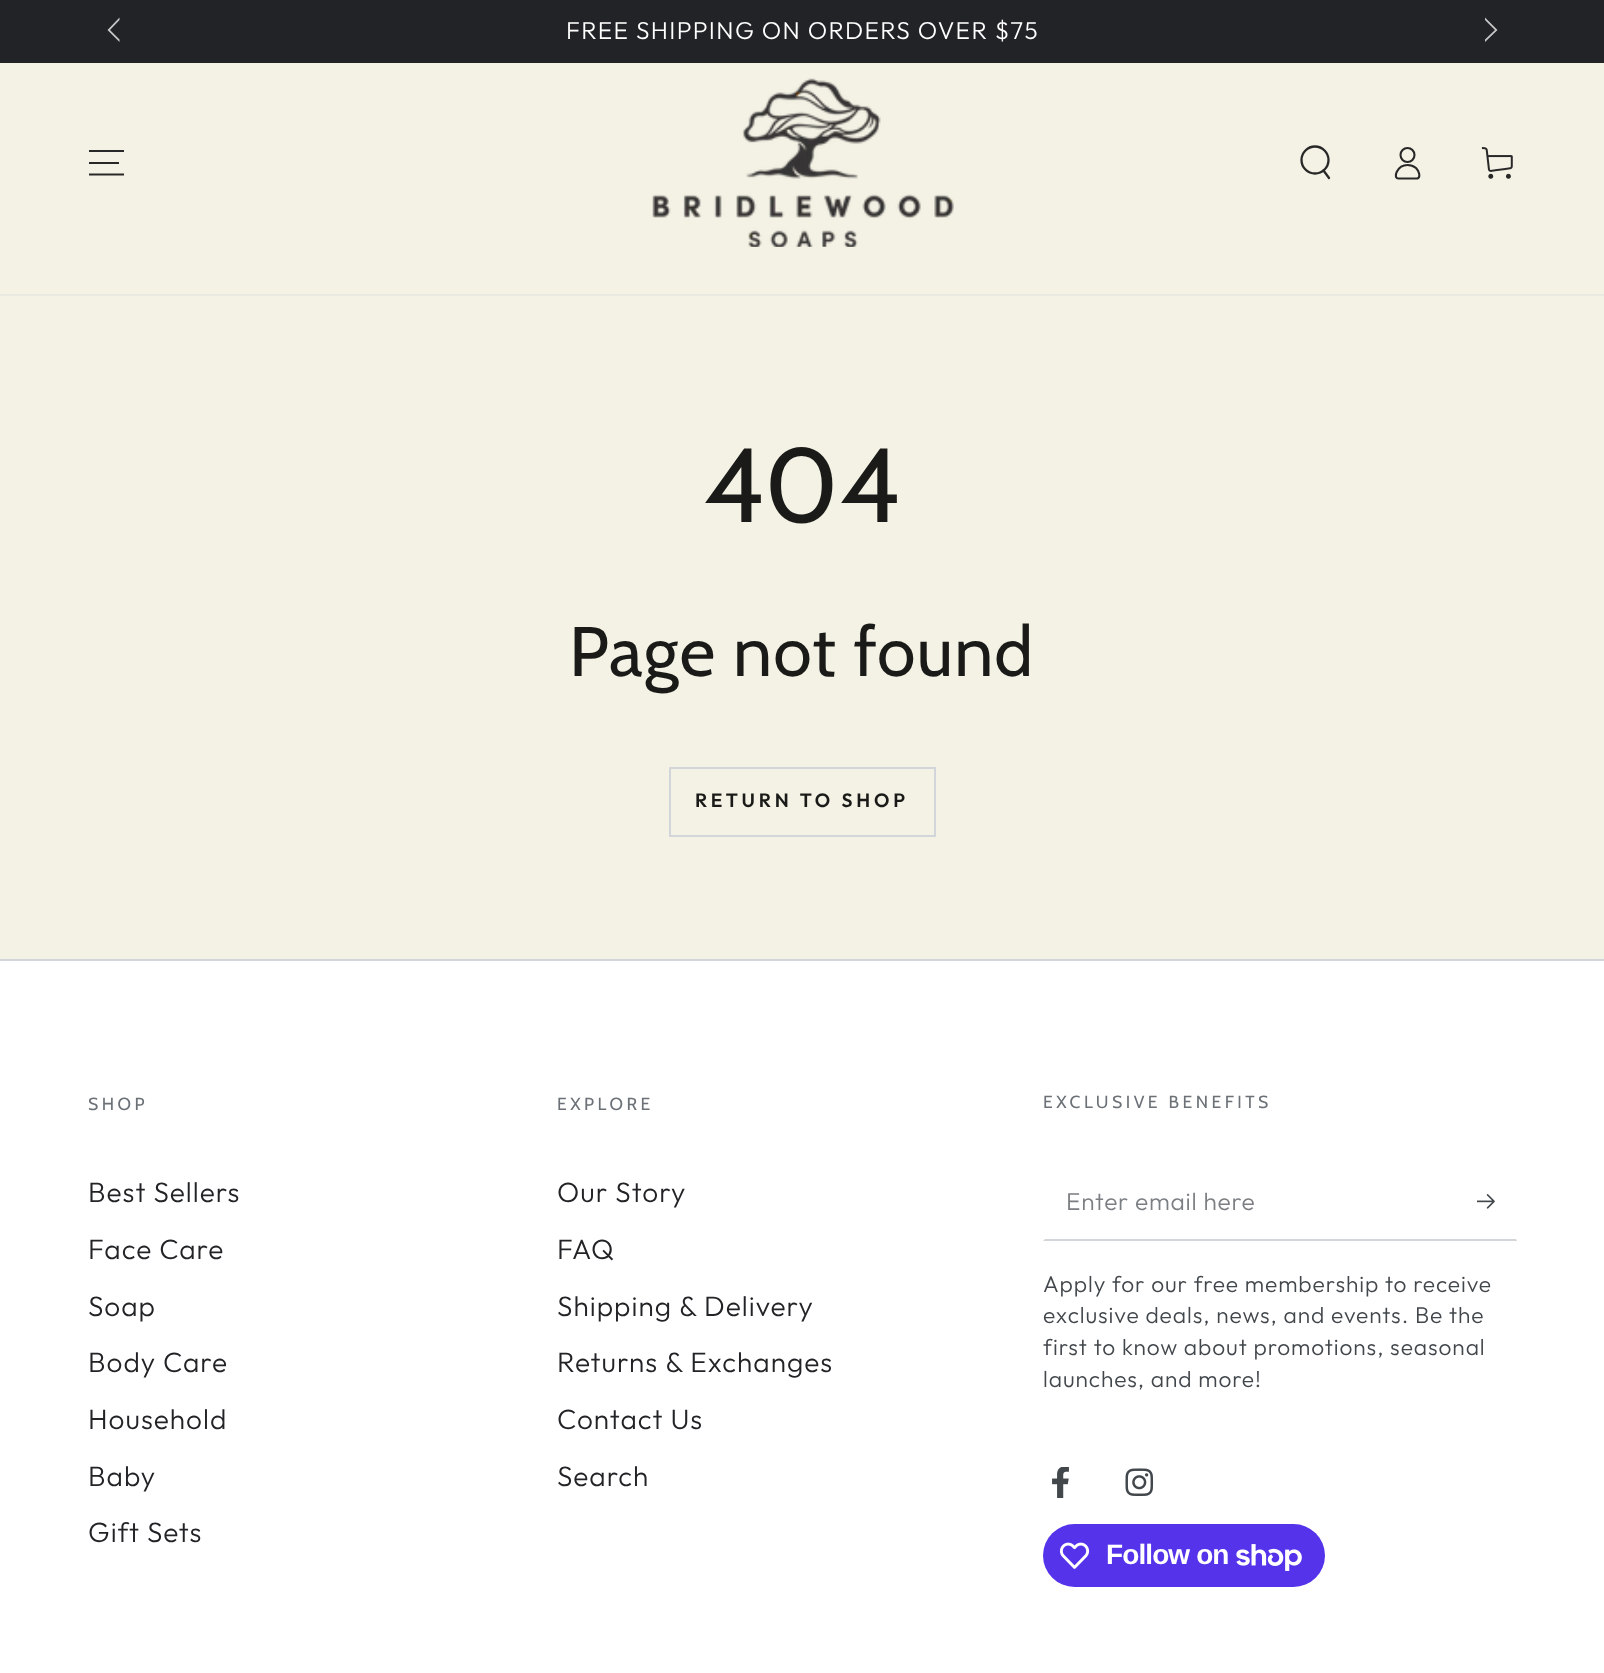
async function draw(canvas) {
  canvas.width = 1604;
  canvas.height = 1673;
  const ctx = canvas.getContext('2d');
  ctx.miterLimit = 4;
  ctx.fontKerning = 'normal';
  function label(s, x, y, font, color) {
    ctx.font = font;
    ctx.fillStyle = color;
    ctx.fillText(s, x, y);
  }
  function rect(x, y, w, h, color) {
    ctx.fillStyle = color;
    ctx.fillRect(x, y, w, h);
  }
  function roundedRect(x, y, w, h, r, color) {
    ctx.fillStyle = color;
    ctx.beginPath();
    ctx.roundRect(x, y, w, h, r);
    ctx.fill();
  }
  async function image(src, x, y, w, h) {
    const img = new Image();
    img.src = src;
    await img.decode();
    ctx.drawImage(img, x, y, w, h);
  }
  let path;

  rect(0, 0, 1604, 1673, '#f4f2e5');
  rect(0, 0, 1604, 63, '#212326');
  ctx.fillStyle = '#c8c8c9';
  path = new Path2D('M107.5 30L119.5 42V39.5L110 30L119.5 20V17.5Z');
  ctx.fill(path, 'evenodd');
  path = new Path2D('M1497.5 30L1485 42V39.5L1495 30L1485 20V17.5Z');
  ctx.fill(path, 'evenodd');
  ctx.letterSpacing = '1.35px';
  label('FREE SHIPPING ON ORDERS OVER $75', 566, 39, '300 24.5px Outfit', '#fff');
  ctx.fillStyle = '#eae9e1';
  path = new Path2D('M0 294V296H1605V65V294Z');
  ctx.fill(path);
  path = new Path2D('M89 174.5H124M89 163H119M89 151H124');
  ctx.strokeStyle = '#282828';
  ctx.lineWidth = 2;
  ctx.stroke(path);
  await image('assets/img1.png', 652, 78, 302, 169);
  ctx.beginPath();
  ctx.arc(1315, 160, 13.5, 0, 2 * Math.PI);
  ctx.lineWidth = 2.3;
  ctx.stroke();
  path = new Path2D('M1323.5 170.5L1329 178');
  ctx.lineCap = 'round';
  ctx.stroke(path);
  path = new Path2D('M1407.5 165C1397 165 1392.5 178.5 1398.5 178.5H1417.5C1421.5 176.5 1418 170 1416 168C1413.5 166 1410.5 165 1407.5 165Z');
  ctx.lineWidth = 2.1;
  ctx.lineCap = 'butt';
  ctx.stroke(path);
  ctx.beginPath();
  ctx.arc(1407.5, 155, 7, 0, 2 * Math.PI);
  ctx.stroke();
  await image('assets/img2.png', 1481, 147, 32, 32);
  ctx.letterSpacing = '1px';
  label('404', 703, 522, '105px Cabin', '#1a1b18');
  label('Page not found', 569, 676, '70px Cabin', '#1a1b18');
  ctx.strokeStyle = '#d2d5d9';
  ctx.lineWidth = 2;
  ctx.strokeRect(670, 768, 265, 68);
  ctx.letterSpacing = '3.8px';
  label('RETURN TO SHOP', 695, 807, '600 19.25px Outfit', '#1a1b18');
  rect(0, 961, 1604, 712, '#fff');
  rect(0, 959, 1604, 2, '#d2d5d9');
  ctx.letterSpacing = '3.5px';
  label('SHOP', 88, 1110, '17.5px Cabin', '#6b7177');
  ctx.letterSpacing = '1px';
  label('Best Sellers', 88, 1202, '300 28px Outfit', '#212326');
  label('Face Care', 88, 1259, '300 28px Outfit', '#212326');
  label('Soap', 88, 1316, '300 28px Outfit', '#212326');
  label('Body Care', 88, 1372, '300 28px Outfit', '#212326');
  label('Household', 88, 1429, '300 28px Outfit', '#212326');
  label('Baby', 88, 1486, '300 28px Outfit', '#212326');
  label('Gift Sets', 88, 1542, '300 28px Outfit', '#212326');
  ctx.letterSpacing = '3.5px';
  label('EXPLORE', 557, 1110, '17.5px Cabin', '#6b7177');
  ctx.letterSpacing = '1px';
  label('Our Story', 557, 1202, '300 28px Outfit', '#212326');
  label('FAQ', 557, 1259, '300 28px Outfit', '#212326');
  label('Shipping & Delivery', 557, 1316, '300 28px Outfit', '#212326');
  label('Returns & Exchanges', 557, 1372, '300 28px Outfit', '#212326');
  label('Contact Us', 557, 1429, '300 28px Outfit', '#212326');
  label('Search', 557, 1486, '300 28px Outfit', '#212326');
  ctx.letterSpacing = '3.5px';
  label('EXCLUSIVE BENEFITS', 1043, 1108, '17.5px Cabin', '#6b7177');
  ctx.fillStyle = '#d2d5d9';
  path = new Path2D('M1517 1241H1043L1045 1239H1516Z');
  ctx.fill(path);
  ctx.letterSpacing = '0.75px';
  label('Enter email here', 1066, 1210, '300 24.5px Outfit', '#7b7e82');
  await image('assets/img3.png', 1477, 1194, 18, 15);
  ctx.letterSpacing = '0.9px';
  label('Apply for our free membership to receive', 1043, 1292, '300 22.75px Outfit', '#42474c');
  label('exclusive deals, news, and events. Be the', 1043, 1323, '300 22.75px Outfit', '#42474c');
  label('first to know about promotions, seasonal', 1043, 1355, '300 22.75px Outfit', '#42474c');
  label('launches, and more!', 1043, 1387, '300 22.75px Outfit', '#42474c');
  await image('assets/img4.png', 1052, 1467, 17, 31);
  await image('assets/img5.png', 1125, 1468, 29, 28);
  roundedRect(1043, 1524, 282, 63, 31.5, '#5433eb');
  await image('assets/img6.png', 1059, 1542, 31, 27);
  ctx.letterSpacing = '-0.9px';
  label('Follow on', 1106, 1564, 'bold 28px Liberation Sans', '#fff');
  await image('assets/img7.png', 1236, 1544, 66, 27);
}

draw(document.querySelector('canvas'));
